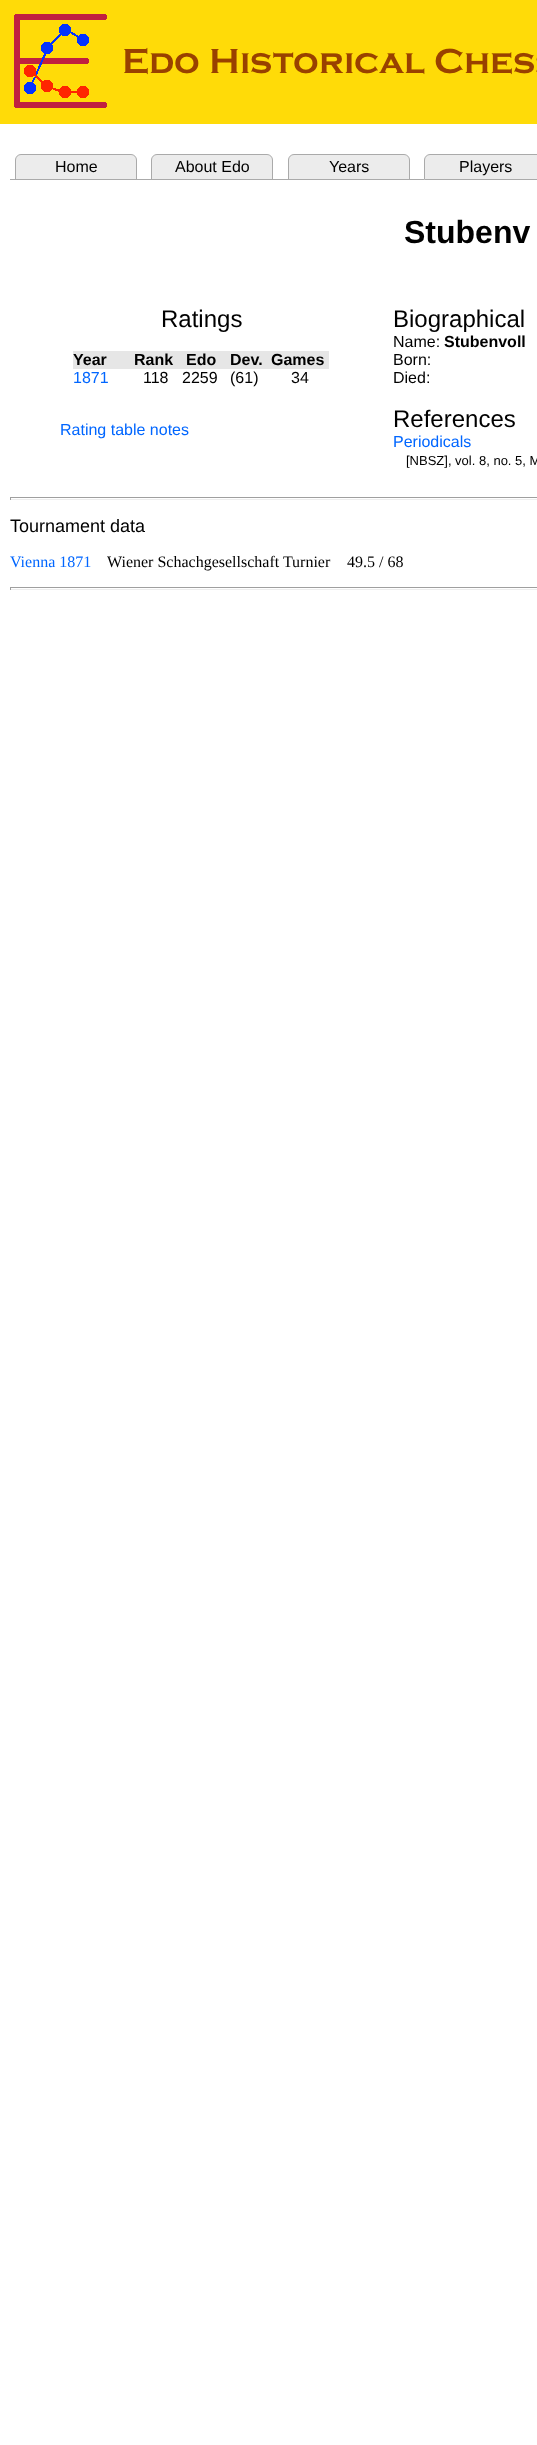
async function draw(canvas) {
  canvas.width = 537;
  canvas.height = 2445;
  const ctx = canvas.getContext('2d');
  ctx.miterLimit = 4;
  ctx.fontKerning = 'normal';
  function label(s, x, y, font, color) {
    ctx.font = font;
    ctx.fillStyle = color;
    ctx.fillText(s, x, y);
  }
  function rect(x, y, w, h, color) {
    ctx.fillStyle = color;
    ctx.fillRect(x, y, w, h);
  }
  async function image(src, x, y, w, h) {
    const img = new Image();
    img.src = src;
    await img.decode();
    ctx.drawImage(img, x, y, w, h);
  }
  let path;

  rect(0, 0, 537, 2445, '#fff');
  await image('assets/img1.png', 0, 0, 537, 124);
  ctx.fillStyle = '#ececec';
  ctx.beginPath();
  ctx.roundRect(15.5, 154.5, 121, 25, [5.5, 5.5, 0, 0]);
  ctx.fill();
  ctx.strokeStyle = '#aaa';
  ctx.stroke();
  label('Home', 55, 172, '16px Liberation Sans', '#000');
  ctx.fillStyle = '#ececec';
  ctx.beginPath();
  ctx.roundRect(151.5, 154.5, 121, 25, [5.5, 5.5, 0, 0]);
  ctx.fill();
  ctx.stroke();
  label('About Edo', 175, 172, '16px Liberation Sans', '#000');
  ctx.fillStyle = '#ececec';
  ctx.beginPath();
  ctx.roundRect(288.5, 154.5, 121, 25, [5.5, 5.5, 0, 0]);
  ctx.fill();
  ctx.stroke();
  label('Years', 329, 172, '16px Liberation Sans', '#000');
  ctx.fillStyle = '#ececec';
  path = new Path2D('M430 154.5H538C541 154.5 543.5 157 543.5 160V179.5H424.5V160C424.5 157 427 154.5 430 154.5Z');
  ctx.fill(path);
  ctx.stroke(path);
  label('Players', 459, 172, '16px Liberation Sans', '#000');
  rect(10, 179, 414, 1, '#aaa');
  label('Stubenv', 404, 243, 'bold 32px Liberation Sans', '#000');
  label('Ratings', 161, 327, '24px Liberation Sans', '#000');
  rect(73, 351, 256, 18, '#e6e6e6');
  label('Year', 73, 365, 'bold 16px Liberation Sans', '#000');
  label('Rank', 134, 365, 'bold 16px Liberation Sans', '#000');
  label('Edo', 186, 365, 'bold 16px Liberation Sans', '#000');
  label('Dev.', 230, 365, 'bold 16px Liberation Sans', '#000');
  label('Games', 271, 365, 'bold 16px Liberation Sans', '#000');
  label('1871', 73, 383, '16px Liberation Sans', '#06f');
  label('118', 143, 383, '16px Liberation Sans', '#000');
  label('2259', 182, 383, '16px Liberation Sans', '#000');
  label('(61)', 230, 383, '16px Liberation Sans', '#000');
  label('34', 291, 383, '16px Liberation Sans', '#000');
  label('Rating table notes', 60, 435, '16px Liberation Sans', '#06f');
  label('Biographical', 393, 327, '24px Liberation Sans', '#000');
  label('Name:', 393, 347, '16px Liberation Sans', '#000');
  label('Stubenvoll', 444, 347, 'bold 16px Liberation Sans', '#000');
  label('Born:', 393, 365, '16px Liberation Sans', '#000');
  label('Died:', 393, 383, '16px Liberation Sans', '#000');
  label('References', 393, 427, '24px Liberation Sans', '#000');
  label('Periodicals', 393, 447, '16px Liberation Sans', '#06f');
  label('[NBSZ], vol. 8, no. 5, M', 406, 465, '13px Liberation Sans', '#000');
  rect(10, 497, 527, 1, '#9f9f9f');
  rect(10, 499, 527, 1, '#eee');
  rect(10, 497, 1, 3, '#9f9f9f');
  label('Tournament data', 10, 532, '18px Liberation Sans', '#000');
  label('Vienna 1871', 10, 567, '16px Liberation Serif', '#06f');
  label('Wiener Schachgesellschaft Turnier', 107, 567, '16px Liberation Serif', '#000');
  label('49.5 / 68', 347, 567, '16px Liberation Serif', '#000');
  rect(10, 587, 527, 1, '#9f9f9f');
  rect(10, 589, 527, 1, '#eee');
  rect(10, 587, 1, 3, '#9f9f9f');
}

draw(document.querySelector('canvas'));
